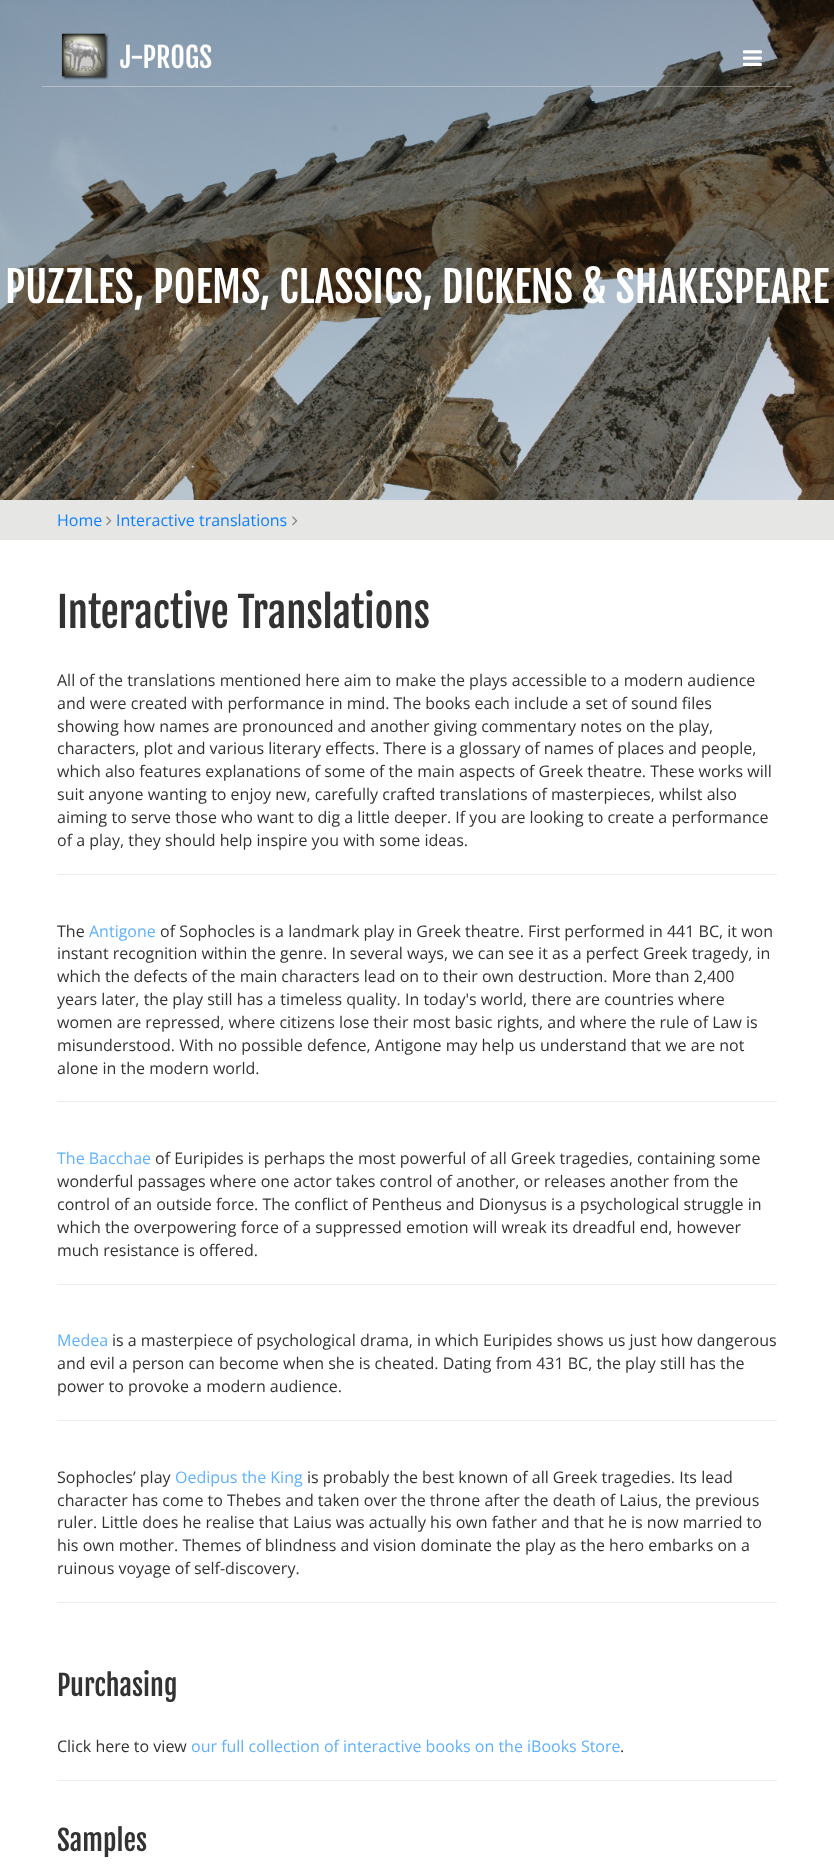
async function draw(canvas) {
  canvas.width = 834;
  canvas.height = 1872;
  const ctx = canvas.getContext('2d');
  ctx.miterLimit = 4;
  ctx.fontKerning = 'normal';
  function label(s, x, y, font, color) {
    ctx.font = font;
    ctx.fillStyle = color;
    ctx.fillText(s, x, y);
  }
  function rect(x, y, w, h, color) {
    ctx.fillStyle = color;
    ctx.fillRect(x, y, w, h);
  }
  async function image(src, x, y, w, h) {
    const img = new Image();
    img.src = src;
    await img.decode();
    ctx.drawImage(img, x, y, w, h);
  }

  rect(0, 0, 834, 1872, '#fff');
  await image('assets/img1.png', 0, 0, 834, 500);
  rect(42, 86, 750, 1, '#ffffff54');
  await image('assets/img2.png', 61, 33, 48, 47);
  label('J-PROGS', 120, 68, '28px Fjalla One', '#fff');
  await image('assets/img3.png', 743, 50, 19, 16);
  label('PUZZLES, POEMS, CLASSICS, DICKENS & SHAKESPEARE', 5, 303, '42px Fjalla One', '#fff');
  rect(0, 500, 834, 40, '#e6e6e5');
  label('Home', 57, 526, '16px Open Sans', '#0f7ffe');
  await image('assets/img4.png', 106, 516, 6, 10);
  label('Interactive translations', 116, 526, '16px Open Sans', '#0f7ffe');
  await image('assets/img4.png', 292, 516, 6, 10);
  label('Interactive Translations', 57, 628, '41px Fjalla One', '#333');
  label('All of the translations mentioned here aim to make the plays accessible to a modern audience', 57, 686, '16px Open Sans', '#333');
  label('and were created with performance in mind. The books each include a set of sound files', 57, 709, '16px Open Sans', '#333');
  label('showing how names are pronounced and another giving commentary notes on the play,', 57, 732, '16px Open Sans', '#333');
  label('characters, plot and various literary effects. There is a glossary of names of places and people,', 57, 754, '16px Open Sans', '#333');
  label('which also features explanations of some of the main aspects of Greek theatre. These works will', 57, 777, '16px Open Sans', '#333');
  label('suit anyone wanting to enjoy new, carefully crafted translations of masterpieces, whilst also', 57, 800, '16px Open Sans', '#333');
  label('aiming to serve those who want to dig a little deeper. If you are looking to create a performance', 57, 823, '16px Open Sans', '#333');
  label('of a play, they should help inspire you with some ideas.', 57, 846, '16px Open Sans', '#333');
  rect(57, 874, 720, 1, '#eee');
  label('The', 57, 937, '16px Open Sans', '#333');
  label('Antigone', 89, 937, '16px Open Sans', '#5fb1fc');
  label('of Sophocles is a landmark play in Greek theatre. First performed in 441 BC, it won', 160, 937, '16px Open Sans', '#333');
  label('instant recognition within the genre. In several ways, we can see it as a perfect Greek tragedy, in', 57, 959, '16px Open Sans', '#333');
  label('which the defects of the main characters lead on to their own destruction. More than 2,400', 57, 982, '16px Open Sans', '#333');
  label('years later, the play still has a timeless quality. In today\'s world, there are countries where', 57, 1005, '16px Open Sans', '#333');
  label('women are repressed, where citizens lose their most basic rights, and where the rule of Law is', 57, 1028, '16px Open Sans', '#333');
  label('misunderstood. With no possible defence, Antigone may help us understand that we are not', 57, 1051, '16px Open Sans', '#333');
  label('alone in the modern world.', 57, 1074, '16px Open Sans', '#333');
  rect(57, 1101, 720, 1, '#eee');
  label('The Bacchae', 57, 1164, '16px Open Sans', '#5fb1fc');
  label('of Euripides is perhaps the most powerful of all Greek tragedies, containing some', 155, 1164, '16px Open Sans', '#333');
  label('wonderful passages where one actor takes control of another, or releases another from the', 57, 1187, '16px Open Sans', '#333');
  label('control of an outside force. The conflict of Pentheus and Dionysus is a psychological struggle in', 57, 1210, '16px Open Sans', '#333');
  label('which the overpowering force of a suppressed emotion will wreak its dreadful end, however', 57, 1233, '16px Open Sans', '#333');
  label('much resistance is offered.', 57, 1256, '16px Open Sans', '#333');
  rect(57, 1284, 720, 1, '#eee');
  label('Medea', 57, 1346, '16px Open Sans', '#5fb1fc');
  label('is a masterpiece of psychological drama, in which Euripides shows us just how dangerous', 112, 1346, '16px Open Sans', '#333');
  label('and evil a person can become when she is cheated. Dating from 431 BC, the play still has the', 57, 1369, '16px Open Sans', '#333');
  label('power to provoke a modern audience.', 57, 1392, '16px Open Sans', '#333');
  rect(57, 1420, 720, 1, '#eee');
  label('Sophocles’ play', 57, 1483, '16px Open Sans', '#333');
  label('Oedipus the King', 175, 1483, '16px Open Sans', '#5fb1fc');
  label('is probably the best known of all Greek tragedies. Its lead', 307, 1483, '16px Open Sans', '#333');
  label('character has come to Thebes and taken over the throne after the death of Laius, the previous', 57, 1506, '16px Open Sans', '#333');
  label('ruler. Little does he realise that Laius was actually his own father and that he is now married to', 57, 1528, '16px Open Sans', '#333');
  label('his own mother. Themes of blindness and vision dominate the play as the hero embarks on a', 57, 1551, '16px Open Sans', '#333');
  label('ruinous voyage of self-discovery.', 57, 1574, '16px Open Sans', '#333');
  rect(57, 1602, 720, 1, '#eee');
  label('Purchasing', 57, 1696, '28px Fjalla One', '#333');
  label('Click here to view', 57, 1752, '16px Open Sans', '#333');
  label('our full collection of interactive books on the iBooks Store', 191, 1752, '16px Open Sans', '#5fb1fc');
  label('.', 620, 1752, '16px Open Sans', '#333');
  rect(57, 1780, 720, 1, '#eee');
  label('Samples', 57, 1851, '28px Fjalla One', '#333');
}

draw(document.querySelector('canvas'));
